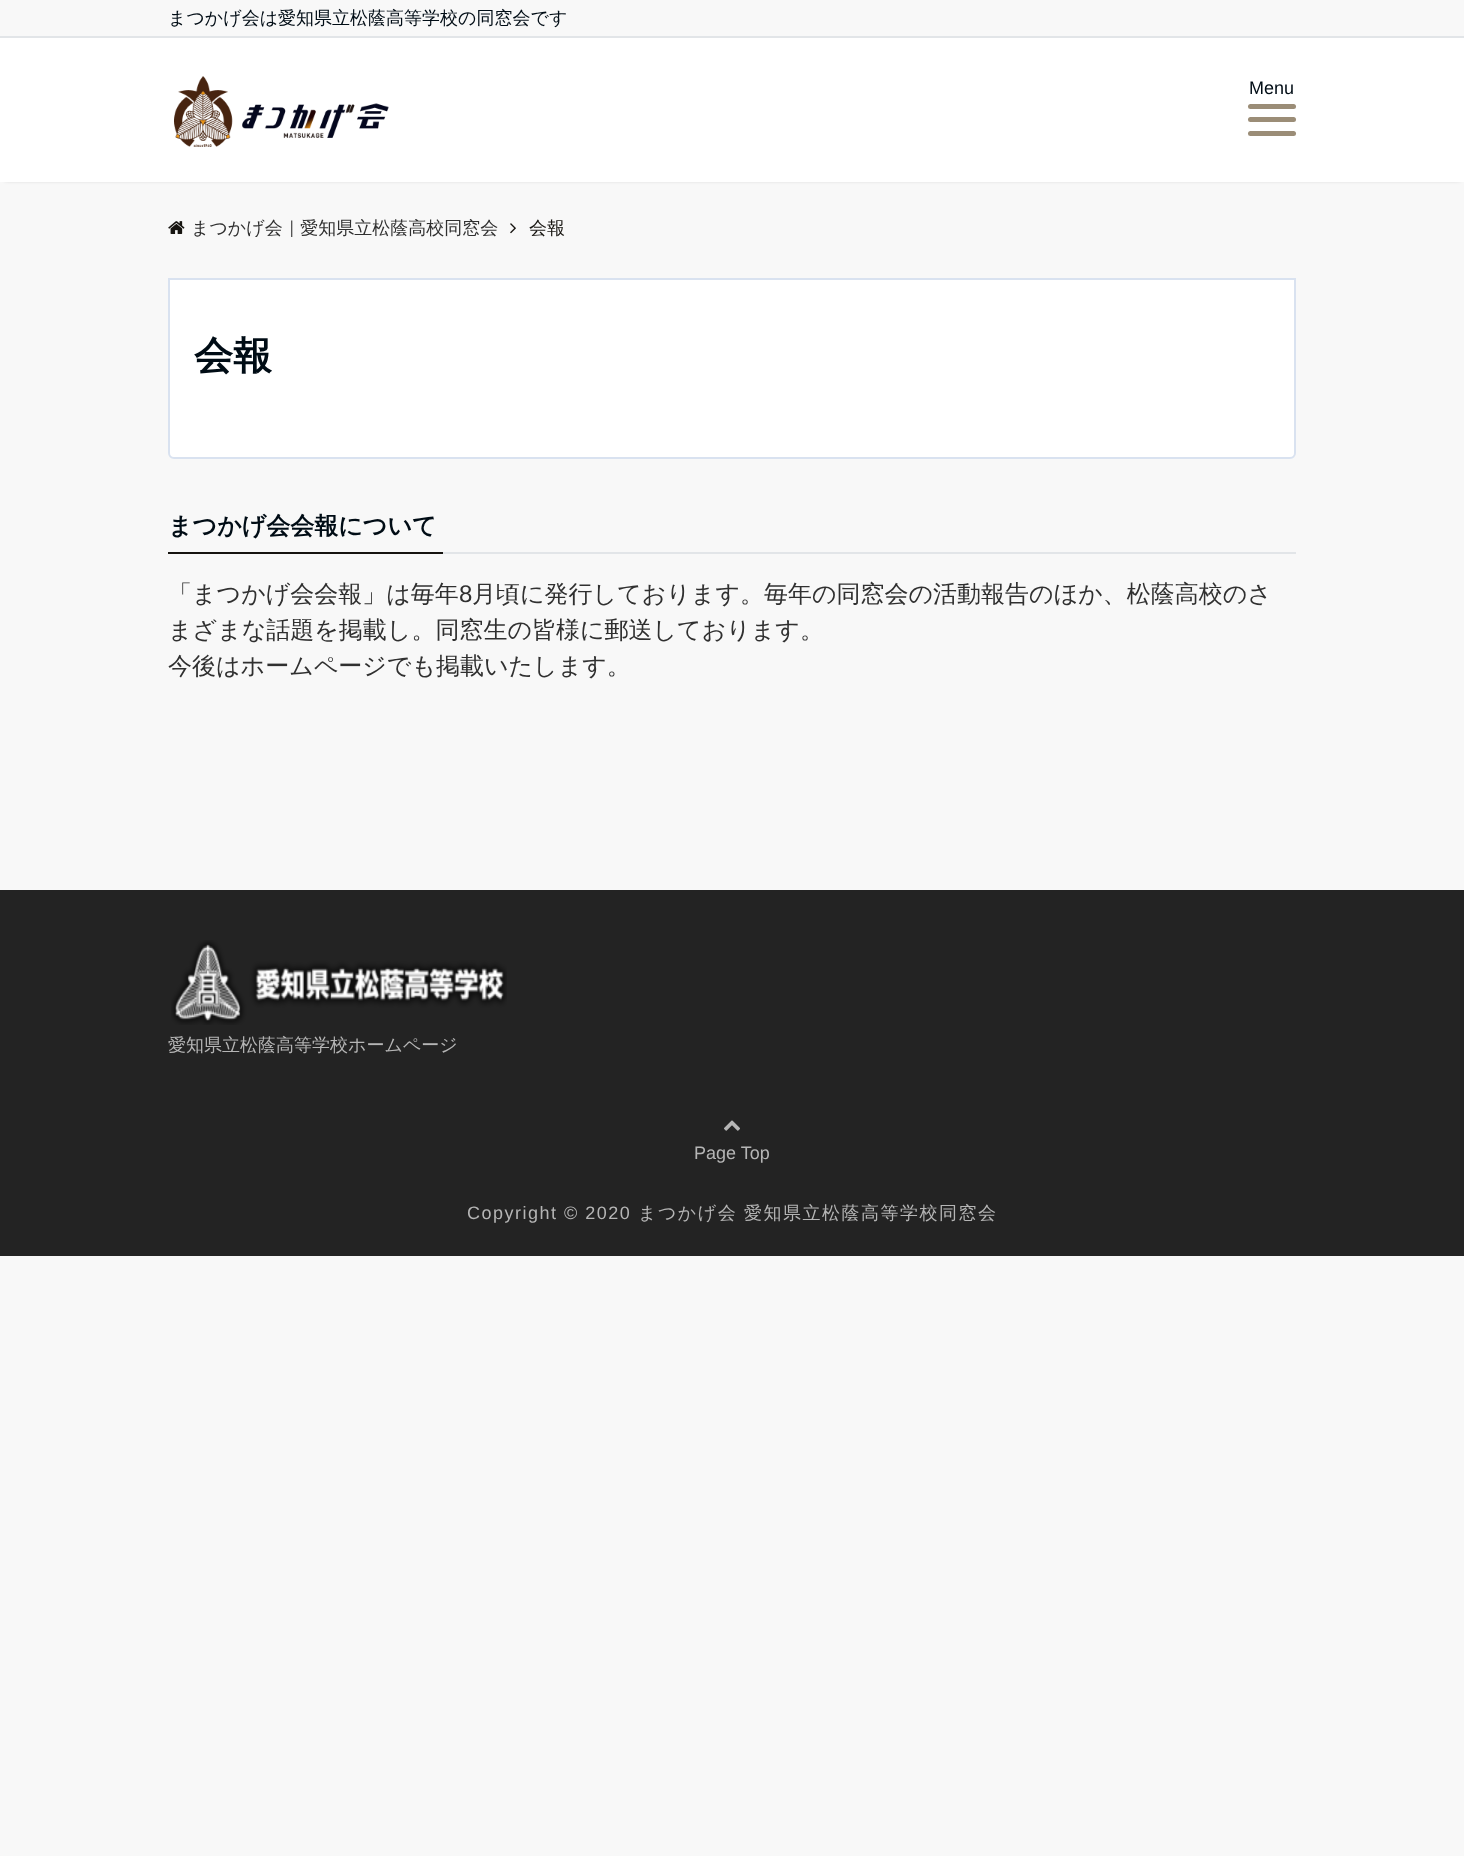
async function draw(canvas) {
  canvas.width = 1464;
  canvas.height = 1856;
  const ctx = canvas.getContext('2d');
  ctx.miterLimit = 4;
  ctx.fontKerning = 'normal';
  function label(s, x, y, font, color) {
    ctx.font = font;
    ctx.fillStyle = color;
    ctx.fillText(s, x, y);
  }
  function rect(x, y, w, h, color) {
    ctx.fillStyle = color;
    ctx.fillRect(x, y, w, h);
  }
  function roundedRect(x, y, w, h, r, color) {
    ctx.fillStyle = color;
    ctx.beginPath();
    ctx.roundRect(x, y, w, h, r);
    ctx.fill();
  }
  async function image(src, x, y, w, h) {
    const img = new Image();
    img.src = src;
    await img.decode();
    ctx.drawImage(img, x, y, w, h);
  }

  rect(0, 0, 1464, 1856, '#f8f8f8');
  rect(0, 36, 1464, 2, '#e2e5e8');
  label('まつかげ会は愛知県立松蔭高等学校の同窓会です', 168, 24, '500 18px WenQuanYi Zen Hei', '#000c15');
  ctx.fillStyle = '#0000004d';
  ctx.filter = 'blur(2px)';
  ctx.beginPath();
  ctx.rect(5, 45, 1455, 135);
  ctx.fill();
  ctx.filter = 'none';
  rect(0, 38, 1464, 144, '#fff');
  await image('assets/img1.png', 174, 76, 215, 71);
  label('Menu', 1249, 94, '18px Liberation Sans', '#000c15');
  roundedRect(1248, 104, 48, 5, 2.5, '#9b8d77');
  roundedRect(1248, 117, 48, 5, 2.5, '#9b8d77');
  roundedRect(1248, 131, 48, 5, 2.5, '#9b8d77');
  await image('assets/img2.png', 168, 221, 17, 13);
  ctx.save();
  ctx.beginPath();
  ctx.rect(168, 219, 360, 18);
  ctx.clip();
  label('まつかげ会｜愛知県立松蔭高校同窓会', 191, 234, '500 18px WenQuanYi Zen Hei', '#303030');
  ctx.restore();
  await image('assets/img3.png', 510, 223, 6, 11);
  label('会報', 529, 234, '500 18px WenQuanYi Zen Hei', '#161410');
  ctx.fillStyle = '#fff';
  ctx.beginPath();
  ctx.roundRect(169, 279, 1126, 179, [0, 0, 5, 5]);
  ctx.fill();
  ctx.strokeStyle = '#d9e2f0';
  ctx.lineWidth = 2;
  ctx.stroke();
  label('会報', 194, 369, 'bold 39px WenQuanYi Zen Hei', '#000c15');
  rect(443, 552, 853, 2, '#e2e5e8');
  rect(168, 552, 275, 2, '#161410');
  label('まつかげ会会報について', 168, 534, 'bold 24px WenQuanYi Zen Hei', '#000c15');
  label('「まつかげ会会報」は毎年', 168, 602, '500 24px WenQuanYi Zen Hei', '#303030');
  label('8', 459, 602, '24px Liberation Sans', '#303030');
  label('月頃に発行しております。毎年の同窓会の活動報告のほか、松蔭高校のさ', 472, 602, '500 24px WenQuanYi Zen Hei', '#303030');
  label('まざまな話題を掲載し。同窓生の皆様に郵送しております。', 168, 638, '500 24px WenQuanYi Zen Hei', '#303030');
  label('今後はホームページでも掲載いたします。', 168, 674, '500 24px WenQuanYi Zen Hei', '#303030');
  rect(0, 890, 1464, 366, '#232323');
  await image('assets/img4.png', 171, 940, 336, 85);
  label('愛知県立松蔭高等学校ホームページ', 168, 1051, '500 18px WenQuanYi Zen Hei', '#b5b5b5');
  await image('assets/img5.png', 724, 1120, 16, 11);
  label('Page Top', 694, 1159, '18px Liberation Sans', '#b5b5b5');
  ctx.letterSpacing = '1.5px';
  label('Copyright © 2020', 467, 1219, '18px Liberation Sans', '#b5b5b5');
  label('まつかげ会', 638, 1219, '500 18px WenQuanYi Zen Hei', '#b5b5b5');
  label('愛知県立松蔭高等学校同窓会', 744, 1219, '500 18px WenQuanYi Zen Hei', '#b5b5b5');
}

draw(document.querySelector('canvas'));
